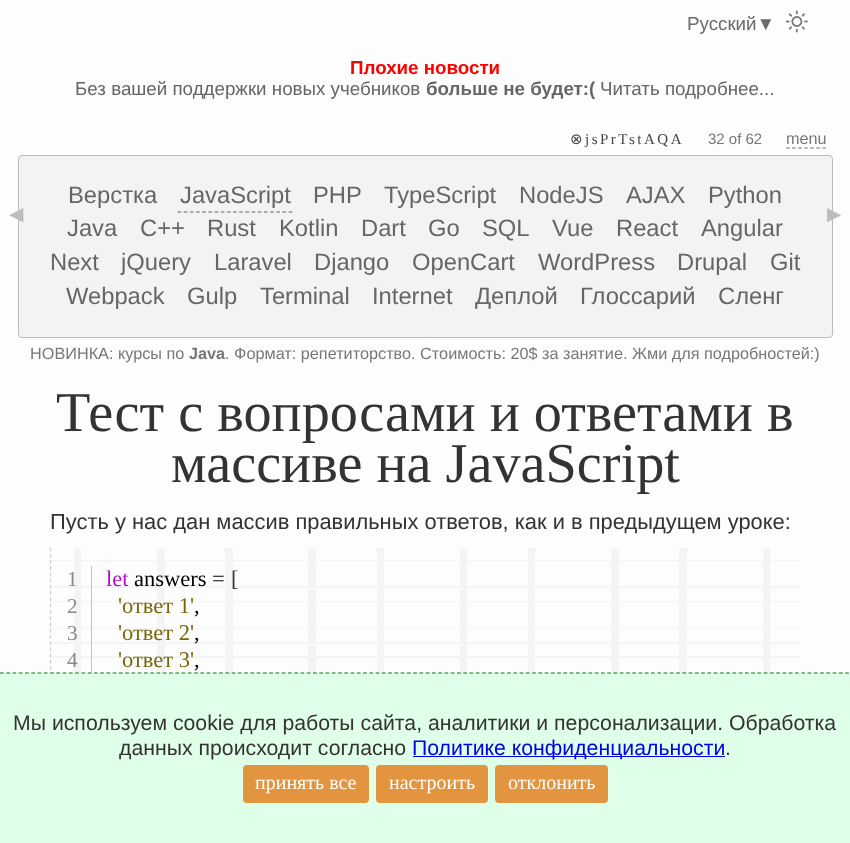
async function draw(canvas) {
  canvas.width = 850;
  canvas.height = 843;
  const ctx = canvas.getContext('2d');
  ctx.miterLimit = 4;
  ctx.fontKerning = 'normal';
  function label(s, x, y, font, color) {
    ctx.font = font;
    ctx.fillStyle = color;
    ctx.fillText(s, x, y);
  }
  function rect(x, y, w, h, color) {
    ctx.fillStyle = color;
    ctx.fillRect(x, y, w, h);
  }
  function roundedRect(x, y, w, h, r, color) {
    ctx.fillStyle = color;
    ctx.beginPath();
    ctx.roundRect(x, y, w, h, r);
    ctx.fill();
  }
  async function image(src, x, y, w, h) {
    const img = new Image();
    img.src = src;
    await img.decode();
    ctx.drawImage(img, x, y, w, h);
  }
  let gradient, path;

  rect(0, 0, 850, 843, '#fdfdfd');
  label('Русский▼', 687, 30, '18.75px Liberation Sans', '#706969');
  await image('assets/img1.png', 785, 10, 23, 23);
  label('Плохие новости', 350, 74, 'bold 18.75px Liberation Sans', '#f00');
  label('Без вашей поддержки новых учебников', 75, 95, '18.75px Liberation Sans', '#666');
  label('больше не будет:(', 426, 95, 'bold 18.75px Liberation Sans', '#666');
  label('Читать подробнее...', 600, 95, '18.75px Liberation Sans', '#666');
  ctx.letterSpacing = '2.5px';
  label('⊗', 570, 144, '15px DejaVu Sans', '#444');
  label('jsPrTstAQA', 585, 144, '15px Liberation Serif', '#444');
  ctx.letterSpacing = '0px';
  label('32 of 62', 708, 144, '15px Liberation Sans', '#777');
  path = new Path2D('M786 148H826');
  ctx.strokeStyle = '#777';
  ctx.lineWidth = 1.2;
  ctx.setLineDash([3.75, 2.29]);
  ctx.stroke(path);
  label('menu', 786, 144, '16.25px Liberation Sans', '#777');
  ctx.fillStyle = '#f3f3f3';
  ctx.beginPath();
  ctx.roundRect(18.5, 155.5, 814, 182, 3.5);
  ctx.fill();
  ctx.strokeStyle = '#bbb';
  ctx.lineWidth = 1;
  ctx.setLineDash([]);
  ctx.stroke();
  label('Верстка', 68, 203, '23.75px Liberation Sans', '#666');
  path = new Path2D('M177.5 212H292.5');
  ctx.strokeStyle = '#666';
  ctx.lineWidth = 1.2;
  ctx.setLineDash([3.75, 2.42]);
  ctx.stroke(path);
  label('JavaScript', 180, 203, '23.75px Liberation Sans', '#666');
  label('PHP', 313, 203, '23.75px Liberation Sans', '#666');
  label('TypeScript', 384, 203, '23.75px Liberation Sans', '#666');
  label('NodeJS', 519, 203, '23.75px Liberation Sans', '#666');
  label('AJAX', 626, 203, '23.75px Liberation Sans', '#666');
  label('Python', 708, 203, '23.75px Liberation Sans', '#666');
  label('Java', 67, 236, '23.75px Liberation Sans', '#666');
  label('C++', 140, 236, '23.75px Liberation Sans', '#666');
  label('Rust', 207, 236, '23.75px Liberation Sans', '#666');
  label('Kotlin', 279, 236, '23.75px Liberation Sans', '#666');
  label('Dart', 361, 236, '23.75px Liberation Sans', '#666');
  label('Go', 428, 236, '23.75px Liberation Sans', '#666');
  label('SQL', 482, 236, '23.75px Liberation Sans', '#666');
  label('Vue', 552, 236, '23.75px Liberation Sans', '#666');
  label('React', 616, 236, '23.75px Liberation Sans', '#666');
  label('Angular', 701, 236, '23.75px Liberation Sans', '#666');
  label('Next', 50, 270, '23.75px Liberation Sans', '#666');
  label('jQuery', 121, 270, '23.75px Liberation Sans', '#666');
  label('Laravel', 214, 270, '23.75px Liberation Sans', '#666');
  label('Django', 314, 270, '23.75px Liberation Sans', '#666');
  label('OpenCart', 412, 270, '23.75px Liberation Sans', '#666');
  label('WordPress', 538, 270, '23.75px Liberation Sans', '#666');
  label('Drupal', 677, 270, '23.75px Liberation Sans', '#666');
  label('Git', 770, 270, '23.75px Liberation Sans', '#666');
  label('Webpack', 66, 304, '23.75px Liberation Sans', '#666');
  label('Gulp', 187, 304, '23.75px Liberation Sans', '#666');
  label('Terminal', 260, 304, '23.75px Liberation Sans', '#666');
  label('Internet', 372, 304, '23.75px Liberation Sans', '#666');
  label('Деплой', 475, 304, '23.75px Liberation Sans', '#666');
  label('Глоссарий', 580, 304, '23.75px Liberation Sans', '#666');
  label('Сленг', 718, 304, '23.75px Liberation Sans', '#666');
  label('◀', 9, 220, '18.75px DejaVu Sans', '#bfbcbc');
  label('▶', 827, 220, '18.75px DejaVu Sans', '#bfbcbc');
  label('НОВИНКА: курсы по', 30, 359, '16.25px Liberation Sans', '#777');
  label('Java', 189, 359, 'bold 16.25px Liberation Sans', '#777');
  label('. Формат: репетиторство. Стоимость: 20$ за занятие. Жми для подробностей:)', 225, 359, '16.25px Liberation Sans', '#777');
  label('Тест с вопросами и ответами в', 56, 431, '56.25px Liberation Serif', '#333');
  label('массиве на JavaScript', 171, 482, '56.25px Liberation Serif', '#333');
  label('Пусть у нас дан массив правильных ответов, как и в предыдущем уроке:', 50, 529, '21.9px Liberation Sans', '#333');
  gradient = ctx.createLinearGradient(51, 634, 808, 634);
  gradient.addColorStop(0, '#fdfdfd');
  gradient.addColorStop(0.02, '#fdfdfd');
  gradient.addColorStop(0.02, '#f4f4f4');
  gradient.addColorStop(0.02, '#fdfdfd');
  gradient.addColorStop(0.03, '#fdfdfd');
  gradient.addColorStop(0.03, '#f4f4f4');
  gradient.addColorStop(0.04, '#f4f4f4');
  gradient.addColorStop(0.04, '#fdfdfd');
  gradient.addColorStop(0.05, '#fdfdfd');
  gradient.addColorStop(0.05, '#f4f4f4');
  gradient.addColorStop(0.05, '#fdfdfd');
  gradient.addColorStop(0.07, '#fdfdfd');
  gradient.addColorStop(0.07, '#f4f4f4');
  gradient.addColorStop(0.07, '#fdfdfd');
  gradient.addColorStop(0.09, '#fdfdfd');
  gradient.addColorStop(0.09, '#f4f4f4');
  gradient.addColorStop(0.09, '#fdfdfd');
  gradient.addColorStop(0.11, '#fdfdfd');
  gradient.addColorStop(0.11, '#f4f4f4');
  gradient.addColorStop(0.11, '#fdfdfd');
  gradient.addColorStop(0.13, '#fdfdfd');
  gradient.addColorStop(0.13, '#f4f4f4');
  gradient.addColorStop(0.13, '#fdfdfd');
  gradient.addColorStop(0.14, '#fdfdfd');
  gradient.addColorStop(0.14, '#f4f4f4');
  gradient.addColorStop(0.15, '#f4f4f4');
  gradient.addColorStop(0.15, '#fdfdfd');
  gradient.addColorStop(0.16, '#fdfdfd');
  gradient.addColorStop(0.16, '#f4f4f4');
  gradient.addColorStop(0.16, '#fdfdfd');
  gradient.addColorStop(0.18, '#fdfdfd');
  gradient.addColorStop(0.18, '#f4f4f4');
  gradient.addColorStop(0.18, '#fdfdfd');
  gradient.addColorStop(0.2, '#fdfdfd');
  gradient.addColorStop(0.2, '#f4f4f4');
  gradient.addColorStop(0.2, '#fdfdfd');
  gradient.addColorStop(0.22, '#fdfdfd');
  gradient.addColorStop(0.22, '#f4f4f4');
  gradient.addColorStop(0.22, '#fdfdfd');
  gradient.addColorStop(0.23, '#fdfdfd');
  gradient.addColorStop(0.23, '#f4f4f4');
  gradient.addColorStop(0.24, '#f4f4f4');
  gradient.addColorStop(0.24, '#fdfdfd');
  gradient.addColorStop(0.25, '#fdfdfd');
  gradient.addColorStop(0.25, '#f4f4f4');
  gradient.addColorStop(0.25, '#fdfdfd');
  gradient.addColorStop(0.27, '#fdfdfd');
  gradient.addColorStop(0.27, '#f4f4f4');
  gradient.addColorStop(0.27, '#fdfdfd');
  gradient.addColorStop(0.29, '#fdfdfd');
  gradient.addColorStop(0.29, '#f4f4f4');
  gradient.addColorStop(0.29, '#fdfdfd');
  gradient.addColorStop(0.31, '#fdfdfd');
  gradient.addColorStop(0.31, '#f4f4f4');
  gradient.addColorStop(0.31, '#fdfdfd');
  gradient.addColorStop(0.33, '#fdfdfd');
  gradient.addColorStop(0.33, '#f4f4f4');
  gradient.addColorStop(0.33, '#fdfdfd');
  gradient.addColorStop(0.34, '#fdfdfd');
  gradient.addColorStop(0.34, '#f4f4f4');
  gradient.addColorStop(0.35, '#f4f4f4');
  gradient.addColorStop(0.35, '#fdfdfd');
  gradient.addColorStop(0.36, '#fdfdfd');
  gradient.addColorStop(0.36, '#f4f4f4');
  gradient.addColorStop(0.36, '#fdfdfd');
  gradient.addColorStop(0.38, '#fdfdfd');
  gradient.addColorStop(0.38, '#f4f4f4');
  gradient.addColorStop(0.38, '#fdfdfd');
  gradient.addColorStop(0.4, '#fdfdfd');
  gradient.addColorStop(0.4, '#f4f4f4');
  gradient.addColorStop(0.4, '#fdfdfd');
  gradient.addColorStop(0.42, '#fdfdfd');
  gradient.addColorStop(0.42, '#f4f4f4');
  gradient.addColorStop(0.42, '#fdfdfd');
  gradient.addColorStop(0.43, '#fdfdfd');
  gradient.addColorStop(0.43, '#f4f4f4');
  gradient.addColorStop(0.44, '#f4f4f4');
  gradient.addColorStop(0.44, '#fdfdfd');
  gradient.addColorStop(0.45, '#fdfdfd');
  gradient.addColorStop(0.45, '#f4f4f4');
  gradient.addColorStop(0.45, '#fdfdfd');
  gradient.addColorStop(0.47, '#fdfdfd');
  gradient.addColorStop(0.47, '#f4f4f4');
  gradient.addColorStop(0.47, '#fdfdfd');
  gradient.addColorStop(0.49, '#fdfdfd');
  gradient.addColorStop(0.49, '#f4f4f4');
  gradient.addColorStop(0.49, '#fdfdfd');
  gradient.addColorStop(0.51, '#fdfdfd');
  gradient.addColorStop(0.51, '#f4f4f4');
  gradient.addColorStop(0.51, '#fdfdfd');
  gradient.addColorStop(0.53, '#fdfdfd');
  gradient.addColorStop(0.53, '#f4f4f4');
  gradient.addColorStop(0.53, '#fdfdfd');
  gradient.addColorStop(0.54, '#fdfdfd');
  gradient.addColorStop(0.54, '#f4f4f4');
  gradient.addColorStop(0.55, '#f4f4f4');
  gradient.addColorStop(0.55, '#fdfdfd');
  gradient.addColorStop(0.56, '#fdfdfd');
  gradient.addColorStop(0.56, '#f4f4f4');
  gradient.addColorStop(0.56, '#fdfdfd');
  gradient.addColorStop(0.58, '#fdfdfd');
  gradient.addColorStop(0.58, '#f4f4f4');
  gradient.addColorStop(0.58, '#fdfdfd');
  gradient.addColorStop(0.6, '#fdfdfd');
  gradient.addColorStop(0.6, '#f4f4f4');
  gradient.addColorStop(0.6, '#fdfdfd');
  gradient.addColorStop(0.62, '#fdfdfd');
  gradient.addColorStop(0.62, '#f4f4f4');
  gradient.addColorStop(0.62, '#fdfdfd');
  gradient.addColorStop(0.63, '#fdfdfd');
  gradient.addColorStop(0.63, '#f4f4f4');
  gradient.addColorStop(0.64, '#f4f4f4');
  gradient.addColorStop(0.64, '#fdfdfd');
  gradient.addColorStop(0.65, '#fdfdfd');
  gradient.addColorStop(0.65, '#f4f4f4');
  gradient.addColorStop(0.65, '#fdfdfd');
  gradient.addColorStop(0.67, '#fdfdfd');
  gradient.addColorStop(0.67, '#f4f4f4');
  gradient.addColorStop(0.67, '#fdfdfd');
  gradient.addColorStop(0.69, '#fdfdfd');
  gradient.addColorStop(0.69, '#f4f4f4');
  gradient.addColorStop(0.69, '#fdfdfd');
  gradient.addColorStop(0.71, '#fdfdfd');
  gradient.addColorStop(0.71, '#f4f4f4');
  gradient.addColorStop(0.71, '#fdfdfd');
  gradient.addColorStop(0.73, '#fdfdfd');
  gradient.addColorStop(0.73, '#f4f4f4');
  gradient.addColorStop(0.73, '#fdfdfd');
  gradient.addColorStop(0.74, '#fdfdfd');
  gradient.addColorStop(0.74, '#f4f4f4');
  gradient.addColorStop(0.75, '#f4f4f4');
  gradient.addColorStop(0.75, '#fdfdfd');
  gradient.addColorStop(0.76, '#fdfdfd');
  gradient.addColorStop(0.76, '#f4f4f4');
  gradient.addColorStop(0.76, '#fdfdfd');
  gradient.addColorStop(0.78, '#fdfdfd');
  gradient.addColorStop(0.78, '#f4f4f4');
  gradient.addColorStop(0.78, '#fdfdfd');
  gradient.addColorStop(0.8, '#fdfdfd');
  gradient.addColorStop(0.8, '#f4f4f4');
  gradient.addColorStop(0.8, '#fdfdfd');
  gradient.addColorStop(0.82, '#fdfdfd');
  gradient.addColorStop(0.82, '#f4f4f4');
  gradient.addColorStop(0.82, '#fdfdfd');
  gradient.addColorStop(0.83, '#fdfdfd');
  gradient.addColorStop(0.83, '#f4f4f4');
  gradient.addColorStop(0.84, '#f4f4f4');
  gradient.addColorStop(0.84, '#fdfdfd');
  gradient.addColorStop(0.85, '#fdfdfd');
  gradient.addColorStop(0.85, '#f4f4f4');
  gradient.addColorStop(0.85, '#fdfdfd');
  gradient.addColorStop(0.87, '#fdfdfd');
  gradient.addColorStop(0.87, '#f4f4f4');
  gradient.addColorStop(0.87, '#fdfdfd');
  gradient.addColorStop(0.89, '#fdfdfd');
  gradient.addColorStop(0.89, '#f4f4f4');
  gradient.addColorStop(0.89, '#fdfdfd');
  gradient.addColorStop(0.91, '#fdfdfd');
  gradient.addColorStop(0.91, '#f4f4f4');
  gradient.addColorStop(0.91, '#fdfdfd');
  gradient.addColorStop(0.93, '#fdfdfd');
  gradient.addColorStop(0.93, '#f4f4f4');
  gradient.addColorStop(0.93, '#fdfdfd');
  gradient.addColorStop(0.94, '#fdfdfd');
  gradient.addColorStop(0.94, '#f4f4f4');
  gradient.addColorStop(0.95, '#f4f4f4');
  gradient.addColorStop(0.95, '#fdfdfd');
  gradient.addColorStop(0.96, '#fdfdfd');
  gradient.addColorStop(0.96, '#f4f4f4');
  gradient.addColorStop(0.96, '#fdfdfd');
  gradient.addColorStop(0.98, '#fdfdfd');
  gradient.addColorStop(0.98, '#f4f4f4');
  gradient.addColorStop(0.98, '#fdfdfd');
  gradient.addColorStop(1, '#fdfdfd');
  gradient.addColorStop(1, '#f4f4f4');
  ctx.fillStyle = gradient;
  ctx.fillRect(74, 548, 696, 125);
  gradient = ctx.createLinearGradient(426, 547, 426, 726);
  gradient.addColorStop(0, '#00000000');
  gradient.addColorStop(0.07, '#f4f4f400');
  gradient.addColorStop(0.07, '#f4f4f4');
  gradient.addColorStop(0.08, '#f4f4f4');
  gradient.addColorStop(0.08, '#f4f4f400');
  gradient.addColorStop(0.15, '#f4f4f400');
  gradient.addColorStop(0.15, '#f4f4f4');
  gradient.addColorStop(0.15, '#f4f4f4');
  gradient.addColorStop(0.15, '#f4f4f400');
  gradient.addColorStop(0.22, '#f4f4f400');
  gradient.addColorStop(0.22, '#f4f4f4');
  gradient.addColorStop(0.23, '#f4f4f4');
  gradient.addColorStop(0.23, '#f4f4f400');
  gradient.addColorStop(0.3, '#f4f4f400');
  gradient.addColorStop(0.3, '#f4f4f4');
  gradient.addColorStop(0.31, '#f4f4f4');
  gradient.addColorStop(0.31, '#f4f4f400');
  gradient.addColorStop(0.38, '#f4f4f400');
  gradient.addColorStop(0.38, '#f4f4f4');
  gradient.addColorStop(0.38, '#f4f4f4');
  gradient.addColorStop(0.38, '#f4f4f400');
  gradient.addColorStop(0.45, '#f4f4f400');
  gradient.addColorStop(0.45, '#f4f4f4');
  gradient.addColorStop(0.46, '#f4f4f4');
  gradient.addColorStop(0.46, '#f4f4f400');
  gradient.addColorStop(0.53, '#f4f4f400');
  gradient.addColorStop(0.53, '#f4f4f4');
  gradient.addColorStop(0.54, '#f4f4f4');
  gradient.addColorStop(0.54, '#f4f4f400');
  gradient.addColorStop(0.61, '#f4f4f400');
  gradient.addColorStop(0.61, '#f4f4f4');
  gradient.addColorStop(0.62, '#f4f4f4');
  gradient.addColorStop(0.62, '#f4f4f400');
  gradient.addColorStop(0.69, '#f4f4f400');
  gradient.addColorStop(0.69, '#f4f4f4');
  gradient.addColorStop(0.69, '#f4f4f4');
  gradient.addColorStop(0.69, '#f4f4f400');
  gradient.addColorStop(0.76, '#f4f4f400');
  gradient.addColorStop(0.76, '#f4f4f4');
  gradient.addColorStop(0.77, '#f4f4f4');
  gradient.addColorStop(0.77, '#f4f4f400');
  gradient.addColorStop(0.84, '#f4f4f400');
  gradient.addColorStop(0.84, '#f4f4f4');
  gradient.addColorStop(0.85, '#f4f4f4');
  gradient.addColorStop(0.85, '#f4f4f400');
  gradient.addColorStop(0.92, '#f4f4f400');
  gradient.addColorStop(0.92, '#f4f4f4');
  gradient.addColorStop(0.92, '#f4f4f4');
  gradient.addColorStop(0.92, '#f4f4f400');
  gradient.addColorStop(0.99, '#f4f4f400');
  gradient.addColorStop(0.99, '#f4f4f4');
  gradient.addColorStop(1, '#f4f4f4');
  ctx.fillStyle = gradient;
  ctx.fillRect(51, 560, 749, 98);
  path = new Path2D('M50.5 547.5V720');
  ctx.strokeStyle = '#ccc';
  ctx.setLineDash([3.75, 2.5]);
  ctx.stroke(path);
  rect(91, 566, 1, 109, '#c3c3c3');
  label('1', 67, 586, '21.25px Liberation Serif', '#888');
  label('let', 106, 586, '22.5px Liberation Serif', '#b10ec8');
  label('answers =', 134, 586, '22.5px Liberation Serif', '#000');
  label('[', 231, 586, '22.5px Liberation Serif', '#333b30');
  label('2', 67, 613, '21.25px Liberation Serif', '#888');
  label('\'ответ 1\'', 118, 613, '22.5px Liberation Serif', '#756606');
  label(',', 194, 613, '22.5px Liberation Serif', '#000');
  label('3', 67, 640, '21.25px Liberation Serif', '#888');
  label('\'ответ 2\'', 118, 640, '22.5px Liberation Serif', '#756606');
  label(',', 194, 640, '22.5px Liberation Serif', '#000');
  label('4', 67, 667, '21.25px Liberation Serif', '#888');
  label('\'ответ 3\'', 118, 667, '22.5px Liberation Serif', '#756606');
  label(',', 194, 667, '22.5px Liberation Serif', '#000');
  rect(0, 673, 850, 170, '#e0ffe9');
  path = new Path2D('M0 673H850');
  ctx.strokeStyle = '#008000';
  ctx.setLineDash([3.75, 2.51]);
  ctx.stroke(path);
  label('Мы используем cookie для работы сайта, аналитики и персонализации. Обработка', 13, 730, '21.25px Liberation Sans', '#333');
  label('данных происходит согласно', 119, 755, '21.25px Liberation Sans', '#333');
  rect(413, 756, 312, 1, '#00e');
  label('Политике конфиденциальности', 412, 755, '21.25px Liberation Sans', '#00e');
  label('.', 725, 755, '21.25px Liberation Sans', '#333');
  roundedRect(243, 765, 126, 38, 4, '#e2943e');
  label('принять все', 255, 789, '20px Liberation Serif', '#fff');
  roundedRect(376, 765, 112, 38, 4, '#e2943e');
  label('настроить', 389, 789, '20px Liberation Serif', '#fff');
  roundedRect(495, 765, 113, 38, 4, '#e2943e');
  label('отклонить', 508, 789, '20px Liberation Serif', '#fff');
}

draw(document.querySelector('canvas'));
